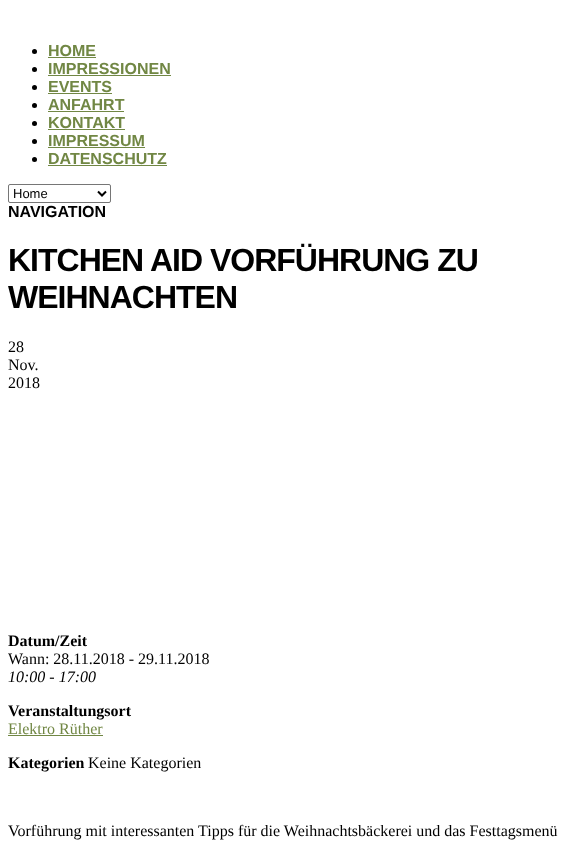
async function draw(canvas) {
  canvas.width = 567;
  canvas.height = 842;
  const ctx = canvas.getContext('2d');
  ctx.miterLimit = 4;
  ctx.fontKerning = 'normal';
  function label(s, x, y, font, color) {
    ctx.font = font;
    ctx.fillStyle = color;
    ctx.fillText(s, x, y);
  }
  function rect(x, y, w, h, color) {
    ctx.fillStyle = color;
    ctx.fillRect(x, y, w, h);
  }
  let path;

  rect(0, 0, 567, 842, '#fff');
  ctx.fillStyle = '#000';
  ctx.beginPath();
  ctx.arc(34.5, 51.5, 2.5, 0, 2 * Math.PI);
  ctx.fill();
  label('HOME', 48, 56, 'bold 16px Liberation Sans', '#718744');
  rect(48, 57, 48, 1, '#718744');
  ctx.fillStyle = '#000';
  ctx.beginPath();
  ctx.arc(34.5, 69.5, 2.5, 0, 2 * Math.PI);
  ctx.fill();
  label('IMPRESSIONEN', 48, 74, 'bold 16px Liberation Sans', '#718744');
  rect(48, 75, 123, 1, '#718744');
  ctx.fillStyle = '#000';
  ctx.beginPath();
  ctx.arc(34.5, 87.5, 2.5, 0, 2 * Math.PI);
  ctx.fill();
  label('EVENTS', 48, 92, 'bold 16px Liberation Sans', '#718744');
  rect(48, 93, 64, 1, '#718744');
  ctx.fillStyle = '#000';
  ctx.beginPath();
  ctx.arc(34.5, 105.5, 2.5, 0, 2 * Math.PI);
  ctx.fill();
  label('ANFAHRT', 48, 110, 'bold 16px Liberation Sans', '#718744');
  rect(48, 111, 76, 1, '#718744');
  ctx.fillStyle = '#000';
  ctx.beginPath();
  ctx.arc(34.5, 123.5, 2.5, 0, 2 * Math.PI);
  ctx.fill();
  label('KONTAKT', 48, 128, 'bold 16px Liberation Sans', '#718744');
  rect(48, 129, 77, 1, '#718744');
  ctx.fillStyle = '#000';
  ctx.beginPath();
  ctx.arc(34.5, 141.5, 2.5, 0, 2 * Math.PI);
  ctx.fill();
  label('IMPRESSUM', 48, 146, 'bold 16px Liberation Sans', '#718744');
  rect(48, 147, 97, 1, '#718744');
  ctx.fillStyle = '#000';
  ctx.beginPath();
  ctx.arc(34.5, 159.5, 2.5, 0, 2 * Math.PI);
  ctx.fill();
  label('DATENSCHUTZ', 48, 164, 'bold 16px Liberation Sans', '#718744');
  rect(48, 165, 119, 1, '#718744');
  ctx.beginPath();
  ctx.roundRect(8.5, 184.5, 102, 18, 1.5);
  ctx.strokeStyle = '#767676';
  ctx.stroke();
  path = new Path2D('M98 191.5L102 195.5L106 191.5');
  ctx.strokeStyle = '#000';
  ctx.lineWidth = 2;
  ctx.stroke(path);
  label('Home', 13, 198, '13px Liberation Sans', '#000');
  label('NAVIGATION', 8, 217, 'bold 16px Liberation Sans', '#000');
  ctx.letterSpacing = '-1px';
  label('KITCHEN AID VORFÜHRUNG ZU', 8, 271, 'bold 32px Liberation Sans', '#000');
  label('WEIHNACHTEN', 8, 308, 'bold 32px Liberation Sans', '#000');
  ctx.letterSpacing = '0px';
  label('28', 8, 352, '16px Liberation Serif', '#000');
  label('Nov.', 8, 370, '16px Liberation Serif', '#000');
  label('2018', 8, 388, '16px Liberation Serif', '#000');
  label('Datum/Zeit', 8, 646, 'bold 16px Liberation Serif', '#000');
  label('Wann: 28.11.2018 - 29.11.2018', 8, 664, '16px Liberation Serif', '#000');
  label('10:00 - 17:00', 8, 682, 'italic 16px Liberation Serif', '#000');
  label('Veranstaltungsort', 8, 716, 'bold 16px Liberation Serif', '#000');
  label('Elektro Rüther', 8, 734, '16px Liberation Serif', '#718744');
  rect(8, 735, 95, 1, '#718744');
  label('Kategorien', 8, 768, 'bold 16px Liberation Serif', '#000');
  label('Keine Kategorien', 88, 768, '16px Liberation Serif', '#000');
  label('Vorführung mit interessanten Tipps für die Weihnachtsbäckerei und das Festtagsmenü', 8, 836, '16px Liberation Serif', '#000');
}

draw(document.querySelector('canvas'));
